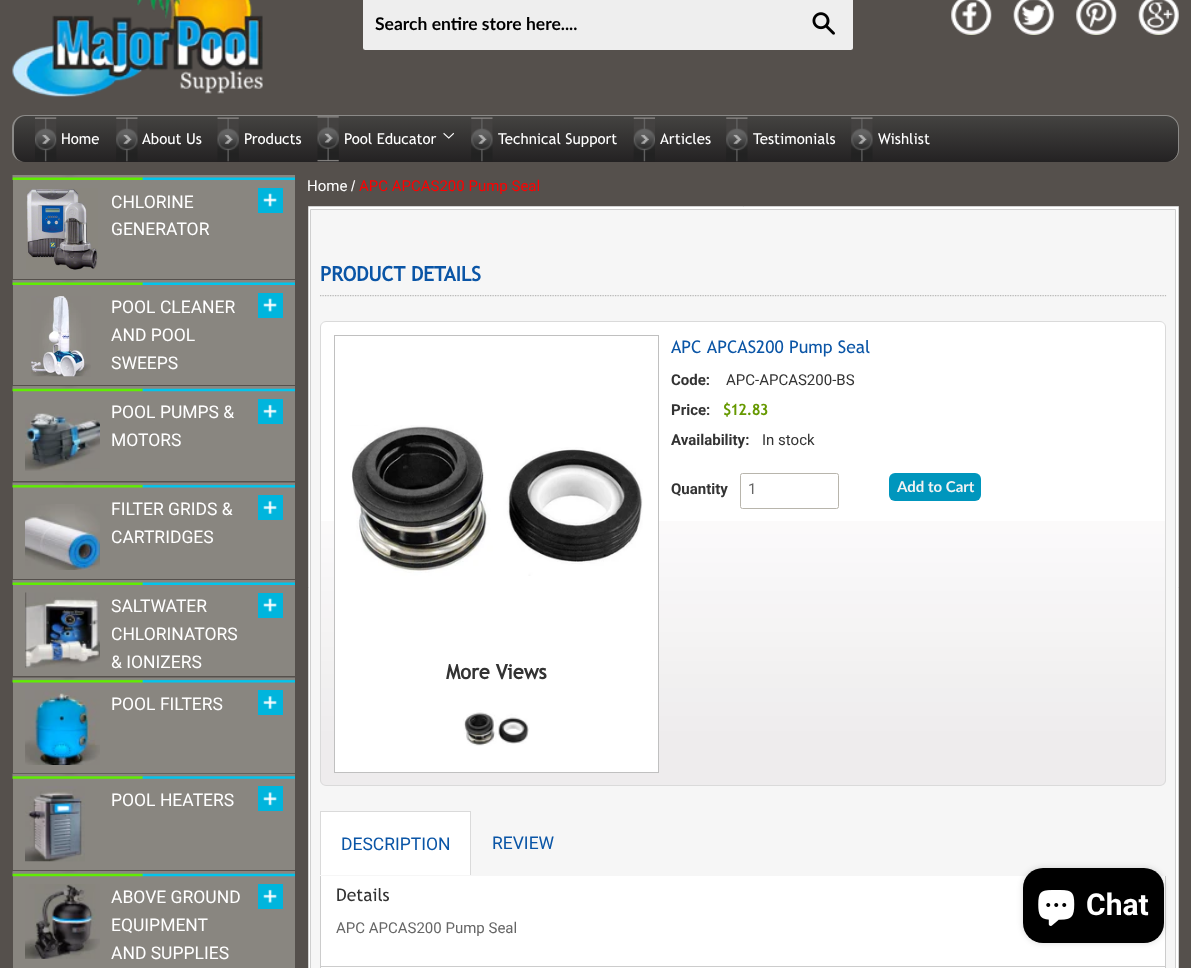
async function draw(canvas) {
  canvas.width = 1191;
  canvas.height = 968;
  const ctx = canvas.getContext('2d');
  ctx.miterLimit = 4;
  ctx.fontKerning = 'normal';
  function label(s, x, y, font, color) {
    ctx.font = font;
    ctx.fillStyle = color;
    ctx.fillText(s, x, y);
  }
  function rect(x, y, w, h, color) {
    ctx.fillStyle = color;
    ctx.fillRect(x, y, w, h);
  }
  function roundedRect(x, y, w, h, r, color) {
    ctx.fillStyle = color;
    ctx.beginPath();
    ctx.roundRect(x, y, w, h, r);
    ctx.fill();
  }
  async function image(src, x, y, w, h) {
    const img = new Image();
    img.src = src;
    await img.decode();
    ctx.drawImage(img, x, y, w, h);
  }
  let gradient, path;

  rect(0, 0, 1191, 968, '#55504c');
  await image('assets/img1.png', 12, 0, 251, 97);
  roundedRect(363, -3, 490, 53, 2.5, '#eee');
  label('Search entire store here....', 375, 30, 'bold 17.5px Lato', '#000');
  await image('assets/img2.png', 812, 12, 23, 23);
  await image('assets/img3.png', 951, 0, 41, 35);
  await image('assets/img4.png', 1013, 0, 41, 35);
  await image('assets/img5.png', 1076, 0, 41, 35);
  await image('assets/img6.png', 1138, 0, 41, 35);
  gradient = ctx.createLinearGradient(596, 116, 596, 163);
  gradient.addColorStop(0, '#444341');
  gradient.addColorStop(1, '#232122');
  ctx.fillStyle = gradient;
  path = new Path2D('M25 116H1166C1172 116 1178 121 1178 128V150C1178 157 1172 162 1166 162H25C19 162 14 157 14 150V128C14 121 19 116 25 116Z');
  ctx.fill(path);
  ctx.fillStyle = '#8b8a88';
  path = new Path2D('M25 115H1166C1173 115 1179 121 1179 128V150C1179 157 1173 162 1166 162H25C18 162 12 157 12 150V128C12 121 18 115 25 115ZM25 116H1166C1172 116 1178 121 1178 128V150C1178 157 1172 162 1166 162H25C19 162 14 157 14 150V128C14 121 19 116 25 116Z');
  ctx.fill(path, 'evenodd');
  await image('assets/img7.png', 35, 117, 22, 45);
  label('Home', 61, 144, '15px Trebuchet MS', '#fff');
  await image('assets/img8.png', 116, 117, 22, 45);
  label('About Us', 142, 144, '15px Trebuchet MS', '#fff');
  await image('assets/img9.png', 217, 117, 22, 45);
  label('Products', 244, 144, '15px Trebuchet MS', '#fff');
  await image('assets/img10.png', 317, 116, 22, 46);
  label('Pool Educator', 344, 144, '15px Trebuchet MS', '#fff');
  await image('assets/img11.png', 443, 132, 11, 7);
  await image('assets/img8.png', 471, 117, 22, 45);
  label('Technical Support', 498, 144, '15px Trebuchet MS', '#fff');
  await image('assets/img12.png', 633, 117, 22, 45);
  label('Articles', 660, 144, '15px Trebuchet MS', '#fff');
  await image('assets/img8.png', 726, 117, 22, 45);
  label('Testimonials', 753, 144, '15px Trebuchet MS', '#fff');
  await image('assets/img8.png', 851, 117, 22, 45);
  label('Wishlist', 878, 144, '15px Trebuchet MS', '#fff');
  rect(13, 180, 282, 99, '#898680');
  await image('assets/img13.png', 12, 175, 283, 5);
  await image('assets/img14.png', 26, 188, 72, 82);
  label('CHLORINE', 111, 208, '17.5px Roboto', '#fff');
  label('GENERATOR', 111, 235, '17.5px Roboto', '#fff');
  rect(258, 188, 25, 25, '#00b5dd');
  await image('assets/img15.png', 263, 193, 14, 14);
  rect(13, 285, 282, 100, '#898680');
  await image('assets/img13.png', 12, 280, 283, 5);
  await image('assets/img16.png', 31, 296, 60, 81);
  label('POOL CLEANER', 111, 313, '17.5px Roboto', '#fff');
  label('AND POOL', 111, 341, '17.5px Roboto', '#fff');
  label('SWEEPS', 111, 369, '17.5px Roboto', '#fff');
  rect(258, 293, 25, 25, '#00b5dd');
  await image('assets/img15.png', 263, 298, 14, 14);
  rect(13, 386, 282, 95, '#898680');
  await image('assets/img17.png', 12, 386, 283, 6);
  await image('assets/img18.png', 25, 413, 75, 58);
  label('POOL PUMPS &', 111, 418, '17.5px Roboto', '#fff');
  label('MOTORS', 111, 446, '17.5px Roboto', '#fff');
  rect(258, 399, 25, 25, '#00b5dd');
  await image('assets/img19.png', 263, 404, 14, 14);
  rect(13, 487, 282, 92, '#898680');
  await image('assets/img20.png', 12, 482, 283, 6);
  await image('assets/img21.png', 25, 504, 75, 66);
  label('FILTER GRIDS &', 111, 515, '17.5px Roboto', '#fff');
  label('CARTRIDGES', 111, 543, '17.5px Roboto', '#fff');
  rect(258, 495, 25, 25, '#00b5dd');
  await image('assets/img22.png', 263, 501, 14, 13);
  rect(13, 585, 282, 91, '#898680');
  await image('assets/img13.png', 12, 580, 283, 5);
  await image('assets/img23.png', 25, 592, 75, 76);
  label('SALTWATER', 111, 612, '17.5px Roboto', '#fff');
  label('CHLORINATORS', 111, 640, '17.5px Roboto', '#fff');
  label('& IONIZERS', 111, 668, '17.5px Roboto', '#fff');
  rect(258, 593, 25, 25, '#00b5dd');
  await image('assets/img15.png', 263, 598, 14, 14);
  rect(13, 682, 282, 91, '#898680');
  await image('assets/img20.png', 12, 677, 283, 6);
  await image('assets/img24.png', 25, 690, 75, 75);
  label('POOL FILTERS', 111, 710, '17.5px Roboto', '#fff');
  rect(258, 690, 25, 25, '#00b5dd');
  await image('assets/img22.png', 263, 696, 14, 13);
  rect(13, 778, 282, 92, '#898680');
  await image('assets/img25.png', 12, 773, 283, 6);
  await image('assets/img26.png', 25, 786, 60, 76);
  label('POOL HEATERS', 111, 806, '17.5px Roboto', '#fff');
  rect(258, 786, 25, 25, '#00b5dd');
  await image('assets/img27.png', 263, 792, 14, 14);
  rect(13, 871, 282, 97, '#898680');
  await image('assets/img17.png', 12, 871, 283, 6);
  await image('assets/img28.png', 25, 884, 75, 75);
  label('ABOVE GROUND', 111, 903, '17.5px Roboto', '#fff');
  label('EQUIPMENT', 111, 931, '17.5px Roboto', '#fff');
  label('AND SUPPLIES', 111, 959, '17.5px Roboto', '#fff');
  rect(258, 884, 25, 25, '#00b5dd');
  await image('assets/img19.png', 263, 889, 14, 14);
  label('Home', 307, 191, '15px Roboto', '#fff');
  label('/', 351, 191, '15px Liberation Sans', '#fff');
  label('APC APCAS200 Pump Seal', 359, 191, '15px Roboto', '#f00');
  ctx.fillStyle = '#fff';
  ctx.beginPath();
  ctx.rect(308.5, 206.5, 870, 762);
  ctx.fill();
  ctx.strokeStyle = '#d1d1d1';
  ctx.stroke();
  ctx.fillStyle = '#f6f6f6';
  ctx.beginPath();
  ctx.rect(310.5, 209.5, 865, 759);
  ctx.fill();
  ctx.strokeStyle = '#cfcfcf';
  ctx.stroke();
  await image('assets/img29.png', 320, 295, 847, 2);
  label('PRODUCT DETAILS', 320, 281, 'bold 20px Trebuchet MS', '#0a55a6');
  roundedRect(320, 321, 846, 465, 6, '#fff');
  await image('assets/img30.png', 320, 521, 846, 264);
  ctx.beginPath();
  ctx.roundRect(320.5, 321.5, 845, 464, 5.5);
  ctx.strokeStyle = '#dadada';
  ctx.stroke();
  label('APC APCAS200 Pump Seal', 671, 353, '17.5px Trebuchet MS', '#0a55a6');
  label('Code:', 671, 385, 'bold 15px Roboto', '#333');
  label('APC-APCAS200-BS', 726, 385, '15px Roboto', '#333');
  label('Price:', 671, 415, 'bold 15px Roboto', '#333');
  label('$12.83', 723, 415, 'bold 15px Trebuchet MS', '#690');
  label('Availability:', 671, 445, 'bold 15px Roboto', '#333');
  label('In stock', 762, 445, '15px Roboto', '#333');
  label('Quantity', 671, 494, 'bold 15px Roboto', '#333');
  ctx.beginPath();
  ctx.roundRect(740.5, 473.5, 98, 35, 2);
  ctx.strokeStyle = '#b8b5ac';
  ctx.stroke();
  label('1', 748, 494, '15px Roboto', '#666');
  roundedRect(889, 473, 92, 28, 6, '#0096bd');
  label('Add to Cart', 897, 492, 'bold 15px Lato', '#f3f3f3');
  rect(335, 521, 323, 251, '#fff');
  ctx.strokeStyle = '#c0c0c0';
  ctx.strokeRect(334.5, 335.5, 324, 437);
  await image('assets/img31.png', 350, 425, 293, 151);
  label('More Views', 446, 679, 'bold 20px Trebuchet MS', '#333');
  await image('assets/img32.png', 463, 710, 67, 36);
  rect(321, 812, 149, 63, '#fff');
  rect(320, 811, 151, 1, '#dadada');
  rect(470, 811, 1, 64, '#dadada');
  rect(320, 811, 1, 64, '#dadada');
  label('DESCRIPTION', 341, 850, '17.5px Roboto', '#0a55a6');
  label('REVIEW', 492, 849, '17.5px Roboto', '#0a55a6');
  rect(321, 876, 844, 92, '#fff');
  rect(1165, 876, 1, 92, '#ccc');
  rect(320, 966, 846, 1, '#ccc');
  rect(320, 876, 1, 92, '#ccc');
  label('Details', 336, 901, '17.5px Trebuchet MS', '#333');
  label('APC APCAS200 Pump Seal', 336, 933, '15px Roboto', '#666');
  ctx.fillStyle = '#00000026';
  ctx.filter = 'blur(3px)';
  ctx.beginPath();
  ctx.roundRect(1023, 868, 141, 75, 20);
  ctx.fill();
  ctx.filter = 'none';
  roundedRect(1023, 868, 141, 75, 20, '#000');
  await image('assets/img33.png', 1038, 890, 37, 36);
  label('Chat', 1086, 915, 'bold 30px Roboto', '#fff');
}

draw(document.querySelector('canvas'));
